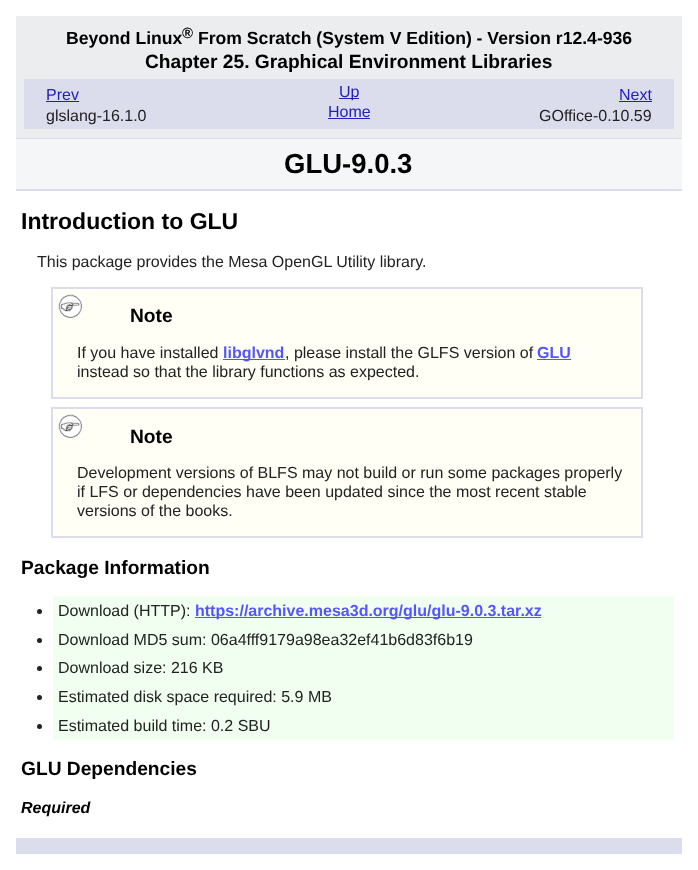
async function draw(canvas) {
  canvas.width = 698;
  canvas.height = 870;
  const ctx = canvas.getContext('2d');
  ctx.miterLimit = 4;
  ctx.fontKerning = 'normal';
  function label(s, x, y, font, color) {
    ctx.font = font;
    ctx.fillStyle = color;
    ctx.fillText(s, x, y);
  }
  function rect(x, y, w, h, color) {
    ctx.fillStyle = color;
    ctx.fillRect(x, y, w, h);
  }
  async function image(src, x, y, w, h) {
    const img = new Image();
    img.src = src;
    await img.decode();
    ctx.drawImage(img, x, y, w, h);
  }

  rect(0, 0, 698, 870, '#fff');
  rect(16, 16, 666, 122, '#ecedef');
  rect(16, 138, 666, 1, '#dbddec');
  label('Beyond Linux', 66, 44, 'bold 17.6px Liberation Sans', '#000');
  label('®', 182, 38, 'bold 15px Liberation Sans', '#000');
  label('From Scratch (System V Edition) - Version r12.4-936', 198, 44, 'bold 17.6px Liberation Sans', '#000');
  label('Chapter 25. Graphical Environment Libraries', 145, 68, 'bold 19.2px Liberation Sans', '#000');
  rect(24, 79, 650, 50, '#dbddec');
  label('Prev', 46, 100, '16px Liberation Sans', '#22b');
  rect(46, 101, 33, 1, '#22b');
  label('glslang-16.1.0', 46, 121, '16px Liberation Sans', '#222');
  rect(339, 98, 20, 1, '#22b');
  label('Up', 339, 97, '16px Liberation Sans', '#22b');
  label('Next', 619, 100, '16px Liberation Sans', '#22b');
  rect(619, 101, 33, 1, '#22b');
  label('GOffice-0.10.59', 539, 121, '16px Liberation Sans', '#222');
  label('Home', 328, 117, '16px Liberation Sans', '#22b');
  rect(328, 118, 42, 1, '#22b');
  rect(16, 139, 666, 50, '#f5f6f7');
  rect(16, 189, 666, 2, '#dbddec');
  label('GLU-9.0.3', 284, 173, 'bold 27.5px Liberation Sans', '#000');
  rect(16, 838, 666, 16, '#dbddec');
  label('Introduction to GLU', 21, 229, 'bold 23px Liberation Sans', '#000');
  label('This package provides the Mesa OpenGL Utility library.', 37, 267, '16px Liberation Sans', '#222');
  ctx.fillStyle = '#fffff6';
  ctx.beginPath();
  ctx.rect(52, 288, 590, 110);
  ctx.fill();
  ctx.strokeStyle = '#dbddec';
  ctx.lineWidth = 2;
  ctx.stroke();
  await image('assets/img1.png', 58, 294, 24, 24);
  label('Note', 130, 322, 'bold 19.2px Liberation Sans', '#000');
  label('If you have installed', 77, 358, '16px Liberation Sans', '#222');
  rect(223, 359, 62, 1, '#55f');
  label('libglvnd', 223, 358, 'bold 16px Liberation Sans', '#55f');
  label(', please install the GLFS version of', 285, 358, '16px Liberation Sans', '#222');
  label('GLU', 537, 358, 'bold 16px Liberation Sans', '#55f');
  rect(537, 359, 34, 1, '#55f');
  label('instead so that the library functions as expected.', 77, 377, '16px Liberation Sans', '#222');
  ctx.fillStyle = '#fffff6';
  ctx.beginPath();
  ctx.rect(52, 408, 590, 129);
  ctx.fill();
  ctx.stroke();
  await image('assets/img1.png', 58, 414, 24, 24);
  label('Note', 130, 443, 'bold 19.2px Liberation Sans', '#000');
  label('Development versions of BLFS may not build or run some packages properly', 77, 478, '16px Liberation Sans', '#222');
  label('if LFS or dependencies have been updated since the most recent stable', 77, 497, '16px Liberation Sans', '#222');
  label('versions of the books.', 77, 516, '16px Liberation Sans', '#222');
  label('Package Information', 21, 574, 'bold 19.2px Liberation Sans', '#000');
  ctx.fillStyle = '#222';
  ctx.beginPath();
  ctx.arc(39.5, 611.5, 2.5, 0, 2 * Math.PI);
  ctx.fill();
  rect(53, 596, 621, 144, '#f0fff0');
  label('Download (HTTP):', 58, 616, '16px Liberation Sans', '#222');
  rect(195, 617, 346, 1, '#55f');
  label('https://archive.mesa3d.org/glu/glu-9.0.3.tar.xz', 195, 616, 'bold 16px Liberation Sans', '#55f');
  ctx.fillStyle = '#222';
  ctx.beginPath();
  ctx.arc(39.5, 640.5, 2.5, 0, 2 * Math.PI);
  ctx.fill();
  label('Download MD5 sum: 06a4fff9179a98ea32ef41b6d83f6b19', 58, 645, '16px Liberation Sans', '#222');
  ctx.beginPath();
  ctx.arc(39.5, 668.5, 2.5, 0, 2 * Math.PI);
  ctx.fill();
  label('Download size: 216 KB', 58, 673, '16px Liberation Sans', '#222');
  ctx.beginPath();
  ctx.arc(39.5, 697.5, 2.5, 0, 2 * Math.PI);
  ctx.fill();
  label('Estimated disk space required: 5.9 MB', 58, 702, '16px Liberation Sans', '#222');
  ctx.beginPath();
  ctx.arc(39.5, 726.5, 2.5, 0, 2 * Math.PI);
  ctx.fill();
  label('Estimated build time: 0.2 SBU', 58, 731, '16px Liberation Sans', '#222');
  label('GLU Dependencies', 21, 775, 'bold 19.2px Liberation Sans', '#000');
  label('Required', 21, 813, 'italic bold 16px Liberation Sans', '#000');
}

draw(document.querySelector('canvas'));
